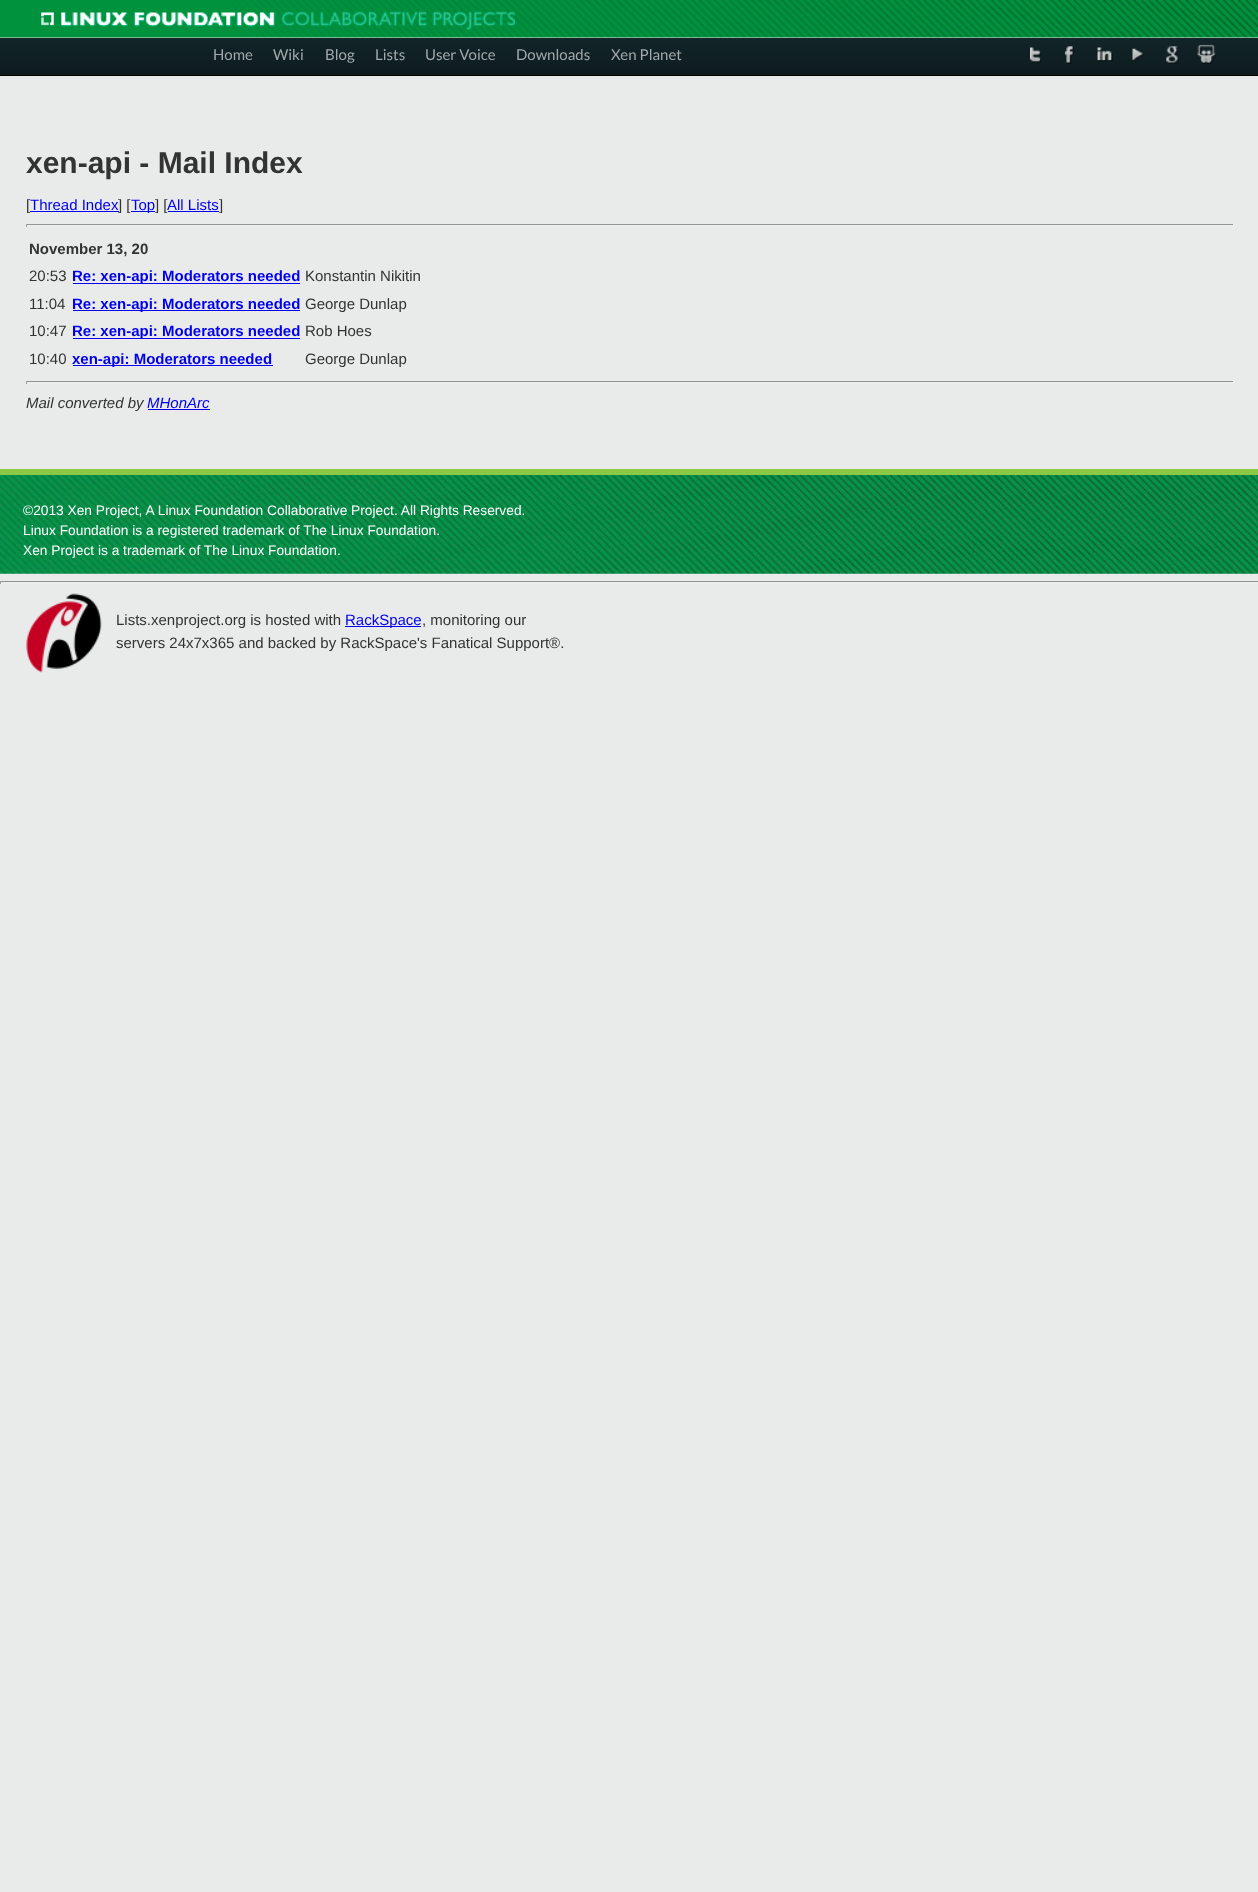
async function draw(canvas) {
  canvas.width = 1258;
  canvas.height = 1892;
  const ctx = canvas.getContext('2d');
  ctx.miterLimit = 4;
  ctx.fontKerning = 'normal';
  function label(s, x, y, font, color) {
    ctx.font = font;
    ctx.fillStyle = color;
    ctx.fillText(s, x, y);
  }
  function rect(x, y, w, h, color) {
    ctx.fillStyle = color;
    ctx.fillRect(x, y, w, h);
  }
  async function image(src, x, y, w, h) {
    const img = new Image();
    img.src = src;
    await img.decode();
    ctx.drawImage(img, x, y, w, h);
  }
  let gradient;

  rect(0, 0, 1258, 1892, '#e9eaea');
  await image('assets/img1.png', 0, 0, 1258, 38);
  await image('assets/img2.png', 41, 11, 474, 19);
  gradient = ctx.createLinearGradient(629, 37, 629, 75);
  gradient.addColorStop(0, '#122529');
  gradient.addColorStop(1, '#0d1b1e');
  ctx.fillStyle = gradient;
  ctx.fillRect(0, 38, 1258, 37);
  rect(0, 75, 1258, 1, '#000');
  label('Home', 213, 60, '15px Lato', '#a1a9ab');
  label('Wiki', 273, 60, '15px Lato', '#a1a9ab');
  label('Blog', 325, 60, '15px Lato', '#a1a9ab');
  label('Lists', 375, 60, '15px Lato', '#a1a9ab');
  label('User Voice', 425, 60, '15px Lato', '#a1a9ab');
  label('Downloads', 516, 60, '15px Lato', '#a1a9ab');
  label('Xen Planet', 611, 60, '15px Lato', '#a1a9ab');
  await image('assets/img3.png', 1030, 47, 12, 16);
  await image('assets/img4.png', 1064, 46, 10, 18);
  await image('assets/img5.png', 1097, 47, 16, 15);
  await image('assets/img6.png', 1132, 48, 12, 13);
  await image('assets/img7.png', 1166, 46, 13, 18);
  await image('assets/img8.png', 1197, 44, 19, 20);
  label('xen-api - Mail Index', 26, 173, 'bold 30px Liberation Sans', '#333');
  label('[', 26, 210, '15px Liberation Sans', '#333');
  rect(30, 211, 89, 1, '#00e');
  label('Thread Index', 30, 210, '15px Liberation Sans', '#00e');
  label('] [', 118, 210, '15px Liberation Sans', '#333');
  rect(131, 211, 24, 1, '#00e');
  label('Top', 131, 210, '15px Liberation Sans', '#00e');
  label('] [', 155, 210, '15px Liberation Sans', '#333');
  label('All Lists', 167, 210, '15px Liberation Sans', '#00e');
  label(']', 219, 210, '15px Liberation Sans', '#333');
  rect(168, 211, 51, 1, '#00e');
  rect(26, 224, 1208, 1, '#939393');
  rect(1233, 224, 1, 3, '#eee');
  rect(26, 225, 1208, 1, '#eee');
  rect(26, 224, 1, 3, '#9f9f9f');
  label('November 13, 20', 29, 254, 'bold 15px Liberation Sans', '#333');
  label('20:53', 29, 281, '15px Liberation Sans', '#333');
  rect(73, 283, 227, 1, '#00e');
  label('Re: xen-api: Moderators needed', 72, 281, 'bold 15px Liberation Sans', '#00e');
  label('Konstantin Nikitin', 305, 281, '15px Liberation Sans', '#333');
  label('11:04', 29, 309, '15px Liberation Sans', '#333');
  rect(73, 310, 227, 1, '#00e');
  label('Re: xen-api: Moderators needed', 72, 309, 'bold 15px Liberation Sans', '#00e');
  label('George Dunlap', 305, 309, '15px Liberation Sans', '#333');
  label('10:47', 29, 336, '15px Liberation Sans', '#333');
  rect(73, 338, 227, 1, '#00e');
  label('Re: xen-api: Moderators needed', 72, 336, 'bold 15px Liberation Sans', '#00e');
  label('Rob Hoes', 305, 336, '15px Liberation Sans', '#333');
  label('10:40', 29, 364, '15px Liberation Sans', '#333');
  rect(73, 365, 200, 1, '#00e');
  label('xen-api: Moderators needed', 72, 364, 'bold 15px Liberation Sans', '#00e');
  label('George Dunlap', 305, 364, '15px Liberation Sans', '#333');
  rect(26, 381, 1208, 1, '#939393');
  rect(1233, 381, 1, 3, '#eee');
  rect(26, 383, 1208, 1, '#eee');
  rect(26, 381, 1, 3, '#9f9f9f');
  label('Mail converted by', 26, 408, 'italic 15px Liberation Sans', '#333');
  label('MHonArc', 147, 408, 'italic 15px Liberation Sans', '#00e');
  rect(148, 409, 62, 1, '#00e');
  await image('assets/img9.png', 0, 475, 1258, 99);
  rect(0, 469, 1258, 6, '#8ac945');
  label('©2013 Xen Project, A Linux Foundation Collaborative Project. All Rights Reserved.', 23, 515, '13.75px Liberation Sans', '#fff');
  label('Linux Foundation is a registered trademark of The Linux Foundation.', 23, 535, '13.75px Liberation Sans', '#fff');
  label('Xen Project is a trademark of The Linux Foundation.', 23, 555, '13.75px Liberation Sans', '#fff');
  rect(0, 581, 1258, 1, '#939393');
  rect(0, 583, 1258, 1, '#eee');
  rect(0, 581, 1, 3, '#9f9f9f');
  await image('assets/img10.png', 26, 593, 76, 80);
  label('Lists.xenproject.org is hosted with', 116, 625, '15px Liberation Sans', '#333');
  rect(345, 626, 76, 1, '#00e');
  label('RackSpace', 345, 625, '15px Liberation Sans', '#00e');
  label(', monitoring our', 422, 625, '15px Liberation Sans', '#333');
  label('servers 24x7x365 and backed by RackSpace\'s Fanatical Support®.', 116, 648, '15px Liberation Sans', '#333');
}

draw(document.querySelector('canvas'));
